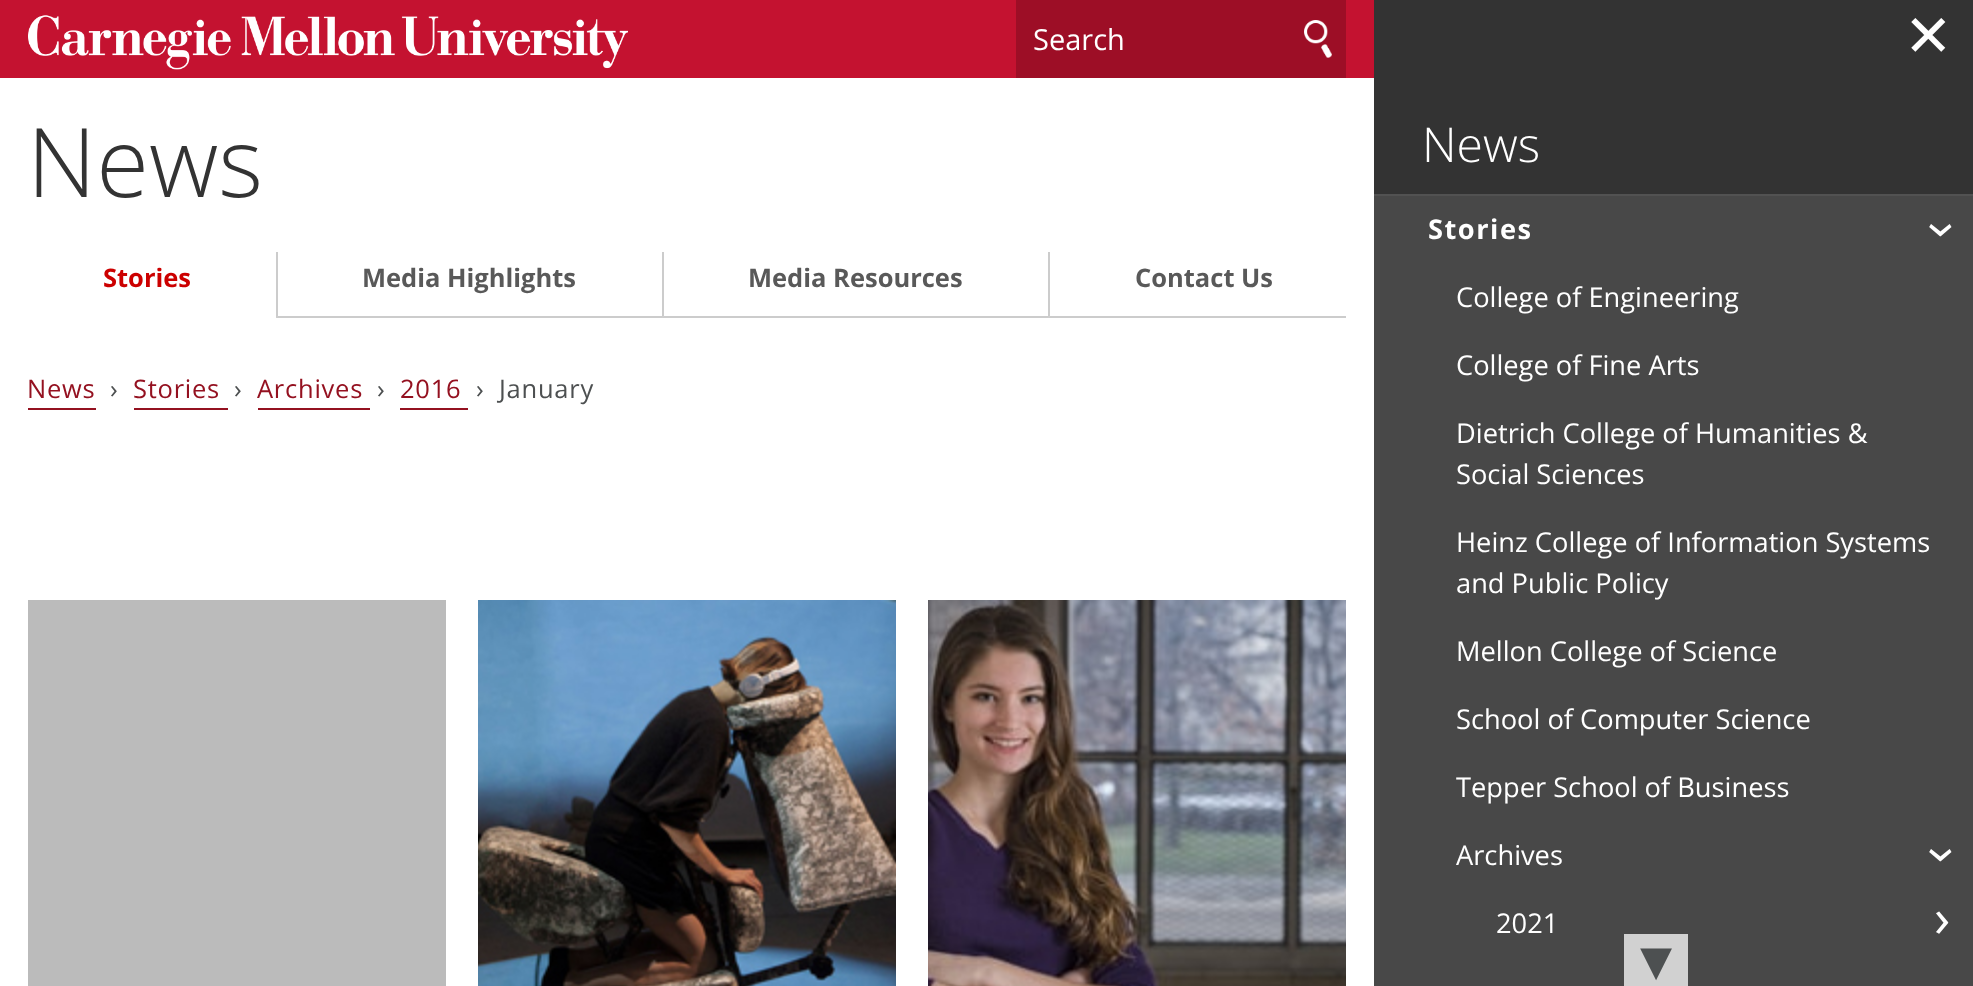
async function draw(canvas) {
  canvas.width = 1973;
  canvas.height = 986;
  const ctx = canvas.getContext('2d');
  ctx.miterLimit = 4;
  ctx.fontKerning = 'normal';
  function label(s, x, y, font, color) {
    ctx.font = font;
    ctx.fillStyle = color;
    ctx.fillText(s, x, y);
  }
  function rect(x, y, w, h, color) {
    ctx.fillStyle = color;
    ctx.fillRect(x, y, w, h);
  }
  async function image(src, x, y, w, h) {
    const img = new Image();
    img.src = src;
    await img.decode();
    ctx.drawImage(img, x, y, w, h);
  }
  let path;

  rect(0, 0, 1973, 986, '#fff');
  rect(0, 0, 1374, 78, '#c41230');
  await image('assets/img1.png', 28, 15, 600, 55);
  rect(1016, 0, 330, 78, '#9d0e26');
  label('Search', 1033, 50, '29px Open Sans', '#fff');
  await image('assets/img2.png', 1304, 20, 28, 38);
  rect(1374, 0, 599, 194, '#333');
  label('✕', 1904, 56, '58px DejaVu Sans', '#fff');
  label('News', 27, 197, '300 96px Open Sans', '#333');
  label('Stories', 103, 287, 'bold 25.5px Open Sans', '#c00');
  ctx.fillStyle = '#ccc';
  path = new Path2D('M662 318H276L278 316H662Z');
  ctx.fill(path);
  ctx.fillStyle = '#00000033';
  path = new Path2D('M276 318V252H278V316Z');
  ctx.fill(path);
  label('Media Highlights', 362, 287, 'bold 25.5px Open Sans', '#595959');
  ctx.fillStyle = '#ccc';
  path = new Path2D('M1048 318H662L664 316H1048Z');
  ctx.fill(path);
  ctx.fillStyle = '#00000033';
  path = new Path2D('M662 318V252H664V316Z');
  ctx.fill(path);
  label('Media Resources', 748, 287, 'bold 25.5px Open Sans', '#595959');
  ctx.fillStyle = '#ccc';
  path = new Path2D('M1346 318H1048L1050 316H1346Z');
  ctx.fill(path);
  ctx.fillStyle = '#00000033';
  path = new Path2D('M1048 318V252H1050V316Z');
  ctx.fill(path);
  label('Contact Us', 1135, 287, 'bold 25.5px Open Sans', '#595959');
  ctx.letterSpacing = '0.75px';
  label('News', 27, 398, '25.5px Open Sans', '#941120');
  rect(28, 408, 68, 2, '#941120');
  label('›', 110, 398, '25.5px Open Sans', '#4d5051');
  label('Stories', 133, 398, '25.5px Open Sans', '#941120');
  rect(134, 408, 94, 2, '#941120');
  label('›', 234, 398, '25.5px Open Sans', '#4d5051');
  label('Archives', 257, 398, '25.5px Open Sans', '#941120');
  rect(258, 408, 112, 2, '#941120');
  label('›', 377, 398, '25.5px Open Sans', '#4d5051');
  label('2016', 400, 398, '25.5px Open Sans', '#941120');
  rect(400, 408, 68, 2, '#941120');
  label('›', 476, 398, '25.5px Open Sans', '#4d5051');
  label('January', 499, 398, '25.5px Open Sans', '#4d5051');
  rect(28, 600, 418, 386, '#bbb');
  await image('assets/img3.png', 478, 600, 418, 386);
  await image('assets/img4.png', 928, 600, 418, 386);
  ctx.letterSpacing = '0px';
  label('News', 1422, 162, '300 48px Open Sans', '#fff');
  rect(1374, 194, 599, 2, '#525252');
  rect(1374, 196, 599, 790, '#484848');
  ctx.letterSpacing = '1.5px';
  label('Stories', 1428, 239, 'bold 27.25px Open Sans', '#fff');
  ctx.letterSpacing = '3px';
  ctx.font = '54px Open Sans';
  ctx.save();
  ctx.translate(1926, 222);
  ctx.rotate(90 * Math.PI / 180);
  ctx.fillText('›', 0, 0);
  ctx.restore();
  ctx.letterSpacing = '0px';
  label('College of Engineering', 1456, 307, '27.25px Open Sans', '#fff');
  label('College of Fine Arts', 1456, 375, '27.25px Open Sans', '#fff');
  label('Dietrich College of Humanities &', 1456, 443, '27.25px Open Sans', '#fff');
  label('Social Sciences', 1456, 484, '27.25px Open Sans', '#fff');
  label('Heinz College of Information Systems', 1456, 552, '27.25px Open Sans', '#fff');
  label('and Public Policy', 1456, 593, '27.25px Open Sans', '#fff');
  label('Mellon College of Science', 1456, 661, '27.25px Open Sans', '#fff');
  label('School of Computer Science', 1456, 729, '27.25px Open Sans', '#fff');
  label('Tepper School of Business', 1456, 797, '27.25px Open Sans', '#fff');
  label('Archives', 1456, 865, '27.25px Open Sans', '#fff');
  ctx.font = '54px Open Sans';
  ctx.save();
  ctx.translate(1926, 847);
  ctx.rotate(90 * Math.PI / 180);
  ctx.fillText('›', 0, 0);
  ctx.restore();
  label('2021', 1496, 933, '27.25px Open Sans', '#fff');
  label('›', 1934, 937, '54px Open Sans', '#fff');
  rect(1624, 934, 64, 52, '#d1d1d1');
  label('▾', 1640, 981, '64px DejaVu Sans', '#4d5051');
}

draw(document.querySelector('canvas'));
